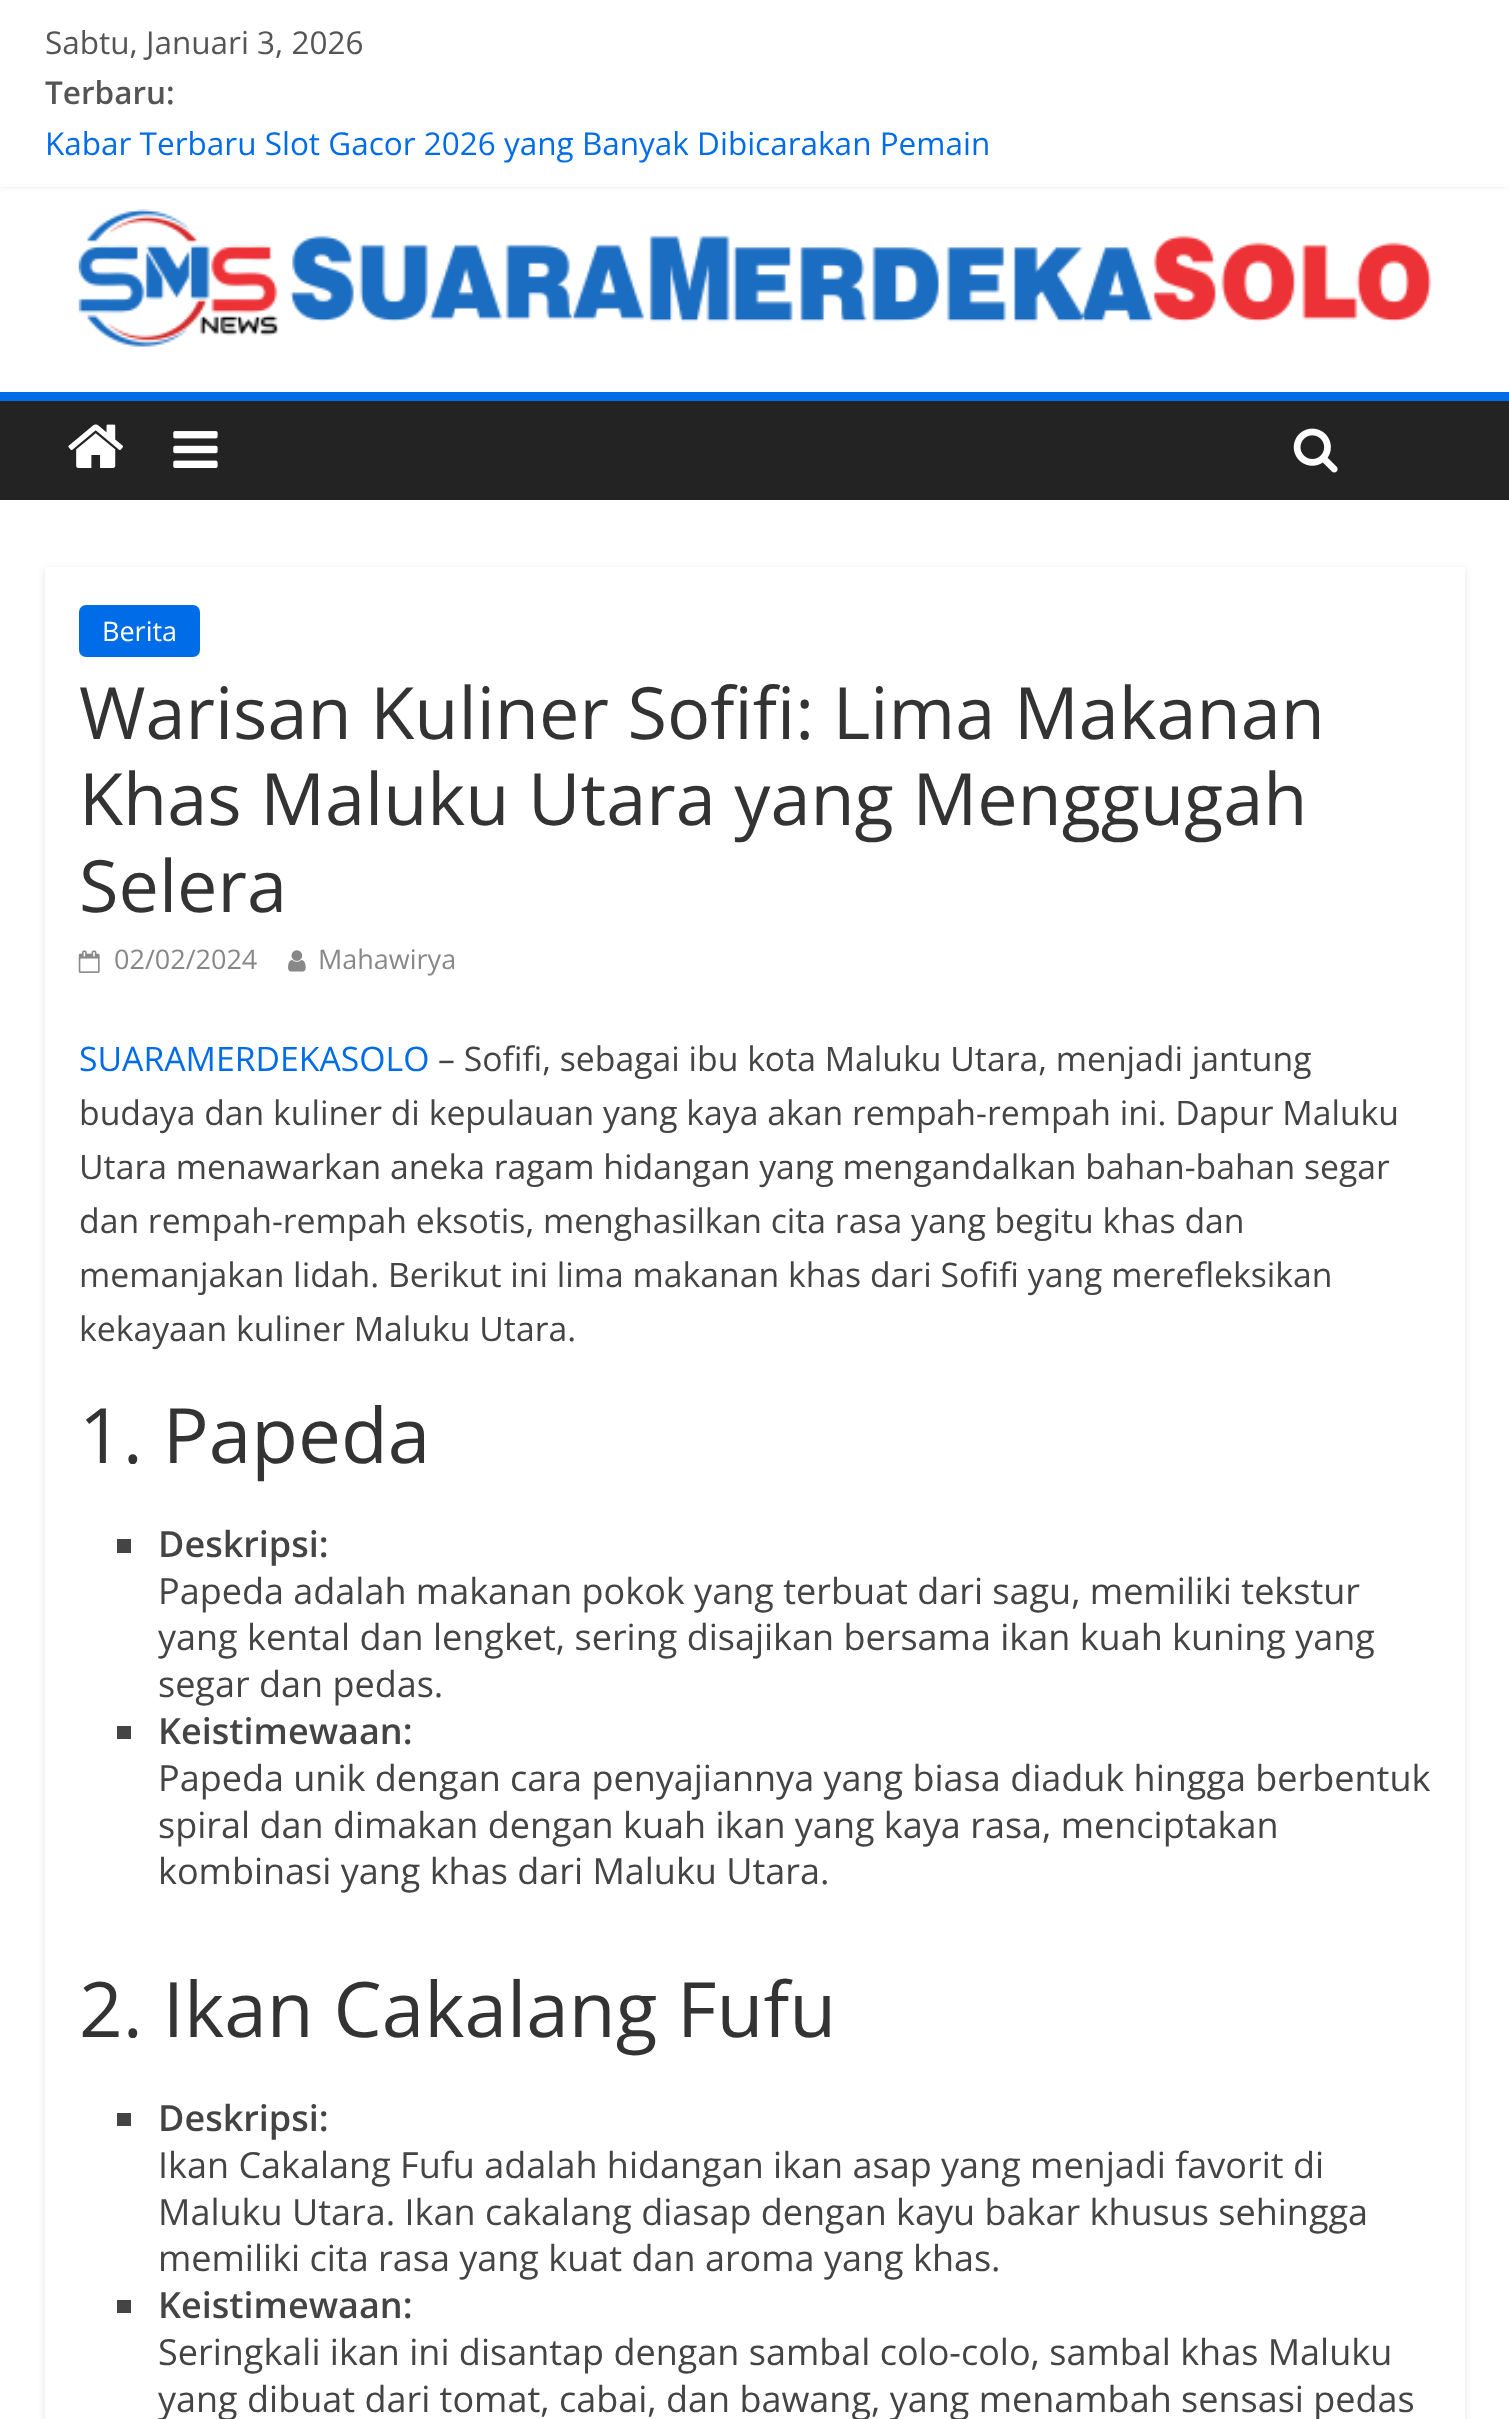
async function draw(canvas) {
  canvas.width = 1509;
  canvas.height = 2419;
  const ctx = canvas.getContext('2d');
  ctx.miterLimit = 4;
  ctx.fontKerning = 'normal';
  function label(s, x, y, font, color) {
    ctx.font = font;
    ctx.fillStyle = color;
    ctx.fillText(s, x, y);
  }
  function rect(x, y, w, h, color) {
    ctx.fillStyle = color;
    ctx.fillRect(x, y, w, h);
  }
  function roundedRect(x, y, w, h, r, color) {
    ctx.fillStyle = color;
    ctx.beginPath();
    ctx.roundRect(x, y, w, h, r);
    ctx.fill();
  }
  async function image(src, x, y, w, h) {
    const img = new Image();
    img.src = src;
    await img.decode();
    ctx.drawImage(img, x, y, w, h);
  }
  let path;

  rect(0, 0, 1509, 2419, '#fff');
  ctx.fillStyle = '#0000001a';
  ctx.filter = 'blur(2px)';
  ctx.beginPath();
  ctx.rect(0, 0, 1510, 187);
  ctx.fill();
  ctx.filter = 'none';
  rect(0, 0, 1509, 187, '#fff');
  label('Sabtu, Januari 3, 2026', 45, 54, '31.5px Open Sans', '#555');
  label('Terbaru:', 45, 104, '600 31.5px Open Sans', '#555');
  label('Kabar Terbaru Slot Gacor 2026 yang Banyak Dibicarakan Pemain', 45, 155, '31.5px Open Sans', '#006ce8');
  await image('assets/img1.png', 78, 209, 1353, 138);
  rect(0, 401, 1509, 99, '#232323');
  rect(0, 392, 1509, 9, '#006ce8');
  await image('assets/img2.png', 68, 424, 55, 44);
  await image('assets/img3.png', 173, 431, 45, 37);
  await image('assets/img4.png', 1293, 428, 45, 45);
  ctx.save();
  path = new Path2D('M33 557H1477V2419H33ZM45 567H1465V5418H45Z');
  ctx.clip(path, 'evenodd');
  ctx.fillStyle = '#0000001a';
  ctx.filter = 'blur(3.5px)';
  ctx.beginPath();
  ctx.rect(45, 569, 1420, 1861);
  ctx.fill();
  ctx.filter = 'none';
  ctx.restore();
  roundedRect(79, 605, 121, 52, 7, '#006ce8');
  label('Berita', 102, 641, '27px Open Sans', '#fff');
  label('Warisan Kuliner Sofifi: Lima Makanan', 79, 739, '72px Open Sans', '#333');
  label('Khas Maluku Utara yang Menggugah', 79, 825, '72px Open Sans', '#333');
  label('Selera', 79, 912, '72px Open Sans', '#333');
  await image('assets/img5.png', 78, 950, 22, 23);
  label('02/02/2024', 114, 969, '27px Open Sans', '#888');
  await image('assets/img6.png', 288, 950, 18, 22);
  label('Mahawirya', 318, 969, '27px Open Sans', '#888');
  label('SUARAMERDEKASOLO', 79, 1071, '33.75px Open Sans', '#006ce8');
  label('– Sofifi, sebagai ibu kota Maluku Utara, menjadi jantung', 438, 1071, '33.75px Open Sans', '#444');
  label('budaya dan kuliner di kepulauan yang kaya akan rempah-rempah ini. Dapur Maluku', 79, 1125, '33.75px Open Sans', '#444');
  label('Utara menawarkan aneka ragam hidangan yang mengandalkan bahan-bahan segar', 79, 1179, '33.75px Open Sans', '#444');
  label('dan rempah-rempah eksotis, menghasilkan cita rasa yang begitu khas dan', 79, 1233, '33.75px Open Sans', '#444');
  label('memanjakan lidah. Berikut ini lima makanan khas dari Sofifi yang merefleksikan', 79, 1287, '33.75px Open Sans', '#444');
  label('kekayaan kuliner Maluku Utara.', 79, 1341, '33.75px Open Sans', '#444');
  label('1. Papeda', 79, 1463, '76.5px Open Sans', '#333');
  rect(117, 1539, 14, 14, '#444');
  label('Deskripsi:', 158, 1557, '600 36px Open Sans', '#444');
  label('Papeda adalah makanan pokok yang terbuat dari sagu, memiliki tekstur', 158, 1604, '36px Open Sans', '#444');
  label('yang kental dan lengket, sering disajikan bersama ikan kuah kuning yang', 158, 1650, '36px Open Sans', '#444');
  label('segar dan pedas.', 158, 1697, '36px Open Sans', '#444');
  rect(117, 1726, 14, 13, '#444');
  label('Keistimewaan:', 158, 1744, '600 36px Open Sans', '#444');
  label('Papeda unik dengan cara penyajiannya yang biasa diaduk hingga berbentuk', 158, 1791, '36px Open Sans', '#444');
  label('spiral dan dimakan dengan kuah ikan yang kaya rasa, menciptakan', 158, 1838, '36px Open Sans', '#444');
  label('kombinasi yang khas dari Maluku Utara.', 158, 1884, '36px Open Sans', '#444');
  label('2. Ikan Cakalang Fufu', 79, 2037, '76.5px Open Sans', '#333');
  rect(117, 2113, 14, 13, '#444');
  label('Deskripsi:', 158, 2131, '600 36px Open Sans', '#444');
  label('Ikan Cakalang Fufu adalah hidangan ikan asap yang menjadi favorit di', 158, 2178, '36px Open Sans', '#444');
  label('Maluku Utara. Ikan cakalang diasap dengan kayu bakar khusus sehingga', 158, 2225, '36px Open Sans', '#444');
  label('memiliki cita rasa yang kuat dan aroma yang khas.', 158, 2271, '36px Open Sans', '#444');
  rect(117, 2300, 14, 13, '#444');
  label('Keistimewaan:', 158, 2318, '600 36px Open Sans', '#444');
  label('Seringkali ikan ini disantap dengan sambal colo-colo, sambal khas Maluku', 158, 2365, '36px Open Sans', '#444');
  label('yang dibuat dari tomat, cabai, dan bawang, yang menambah sensasi pedas', 158, 2412, '36px Open Sans', '#444');
}

draw(document.querySelector('canvas'));
